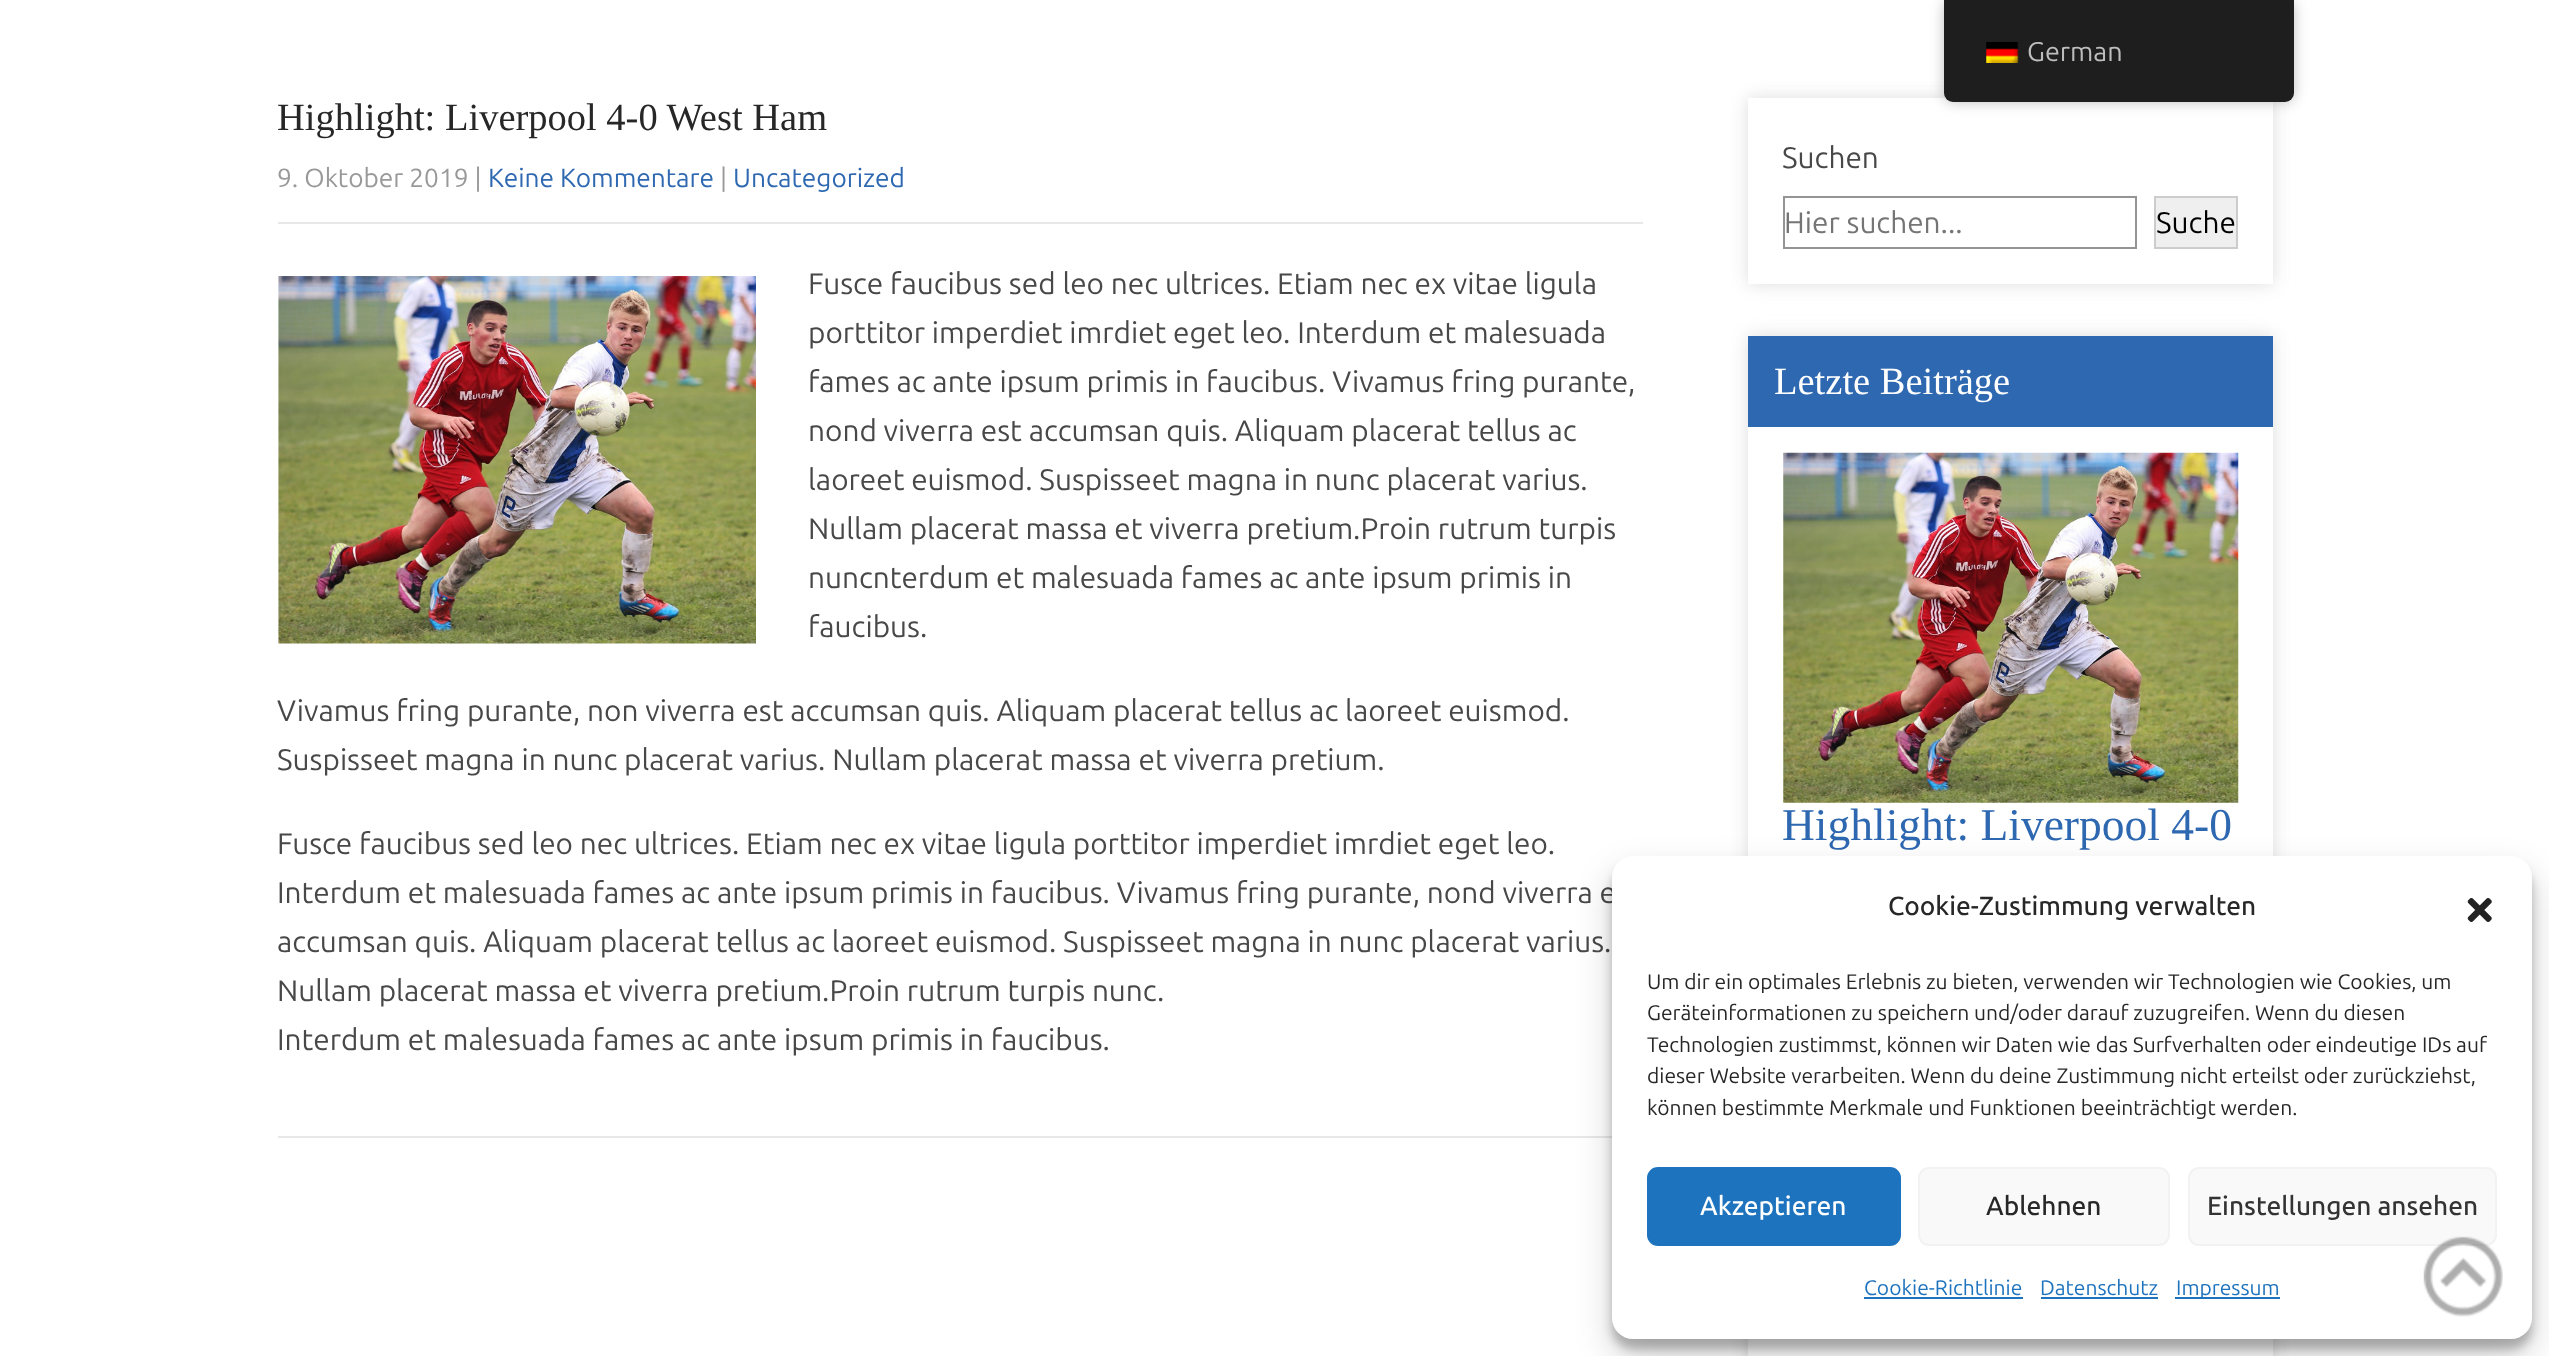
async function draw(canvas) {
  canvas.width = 2549;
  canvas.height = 1356;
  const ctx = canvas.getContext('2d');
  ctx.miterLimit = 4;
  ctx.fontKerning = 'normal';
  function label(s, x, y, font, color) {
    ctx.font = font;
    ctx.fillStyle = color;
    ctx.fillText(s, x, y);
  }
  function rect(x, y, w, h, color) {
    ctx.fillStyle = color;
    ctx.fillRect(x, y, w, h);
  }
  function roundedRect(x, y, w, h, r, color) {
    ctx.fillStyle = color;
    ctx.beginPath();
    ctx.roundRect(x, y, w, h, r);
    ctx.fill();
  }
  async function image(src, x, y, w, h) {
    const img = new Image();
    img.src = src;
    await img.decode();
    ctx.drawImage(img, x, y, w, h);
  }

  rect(0, 0, 2549, 1356, '#fff');
  ctx.fillStyle = '#ddd';
  ctx.filter = 'blur(9px)';
  ctx.beginPath();
  ctx.rect(1748, 98, 525, 186);
  ctx.fill();
  ctx.filter = 'none';
  rect(1748, 98, 525, 186, '#fff');
  ctx.fillStyle = '#00000040';
  ctx.filter = 'blur(7px)';
  ctx.beginPath();
  ctx.roundRect(1944, 0, 350, 102, 9);
  ctx.fill();
  ctx.filter = 'none';
  ctx.fillStyle = '#1e1e1e';
  ctx.beginPath();
  ctx.roundRect(1944, 0, 350, 102, [0, 0, 9, 9]);
  ctx.fill();
  await image('assets/img1.png', 1986, 42, 33, 21);
  label('German', 2027, 61, '27px Ubuntu', '#bdbdbd');
  label('Highlight: Liverpool 4-0 West Ham', 277, 130, '38.5px Liberation Serif', '#272727');
  rect(278, 222, 1365, 2, '#e8e8e8');
  label('9. Oktober 2019 |', 277, 187, '26.25px Ubuntu', '#999');
  label('Keine Kommentare', 488, 187, '26.25px Ubuntu', '#2e68b1');
  label('|', 720, 187, '26.25px Ubuntu', '#999');
  label('Uncategorized', 733, 187, '26.25px Ubuntu', '#2e68b1');
  await image('assets/img2.png', 278, 276, 478, 368);
  label('Fusce faucibus sed leo nec ultrices. Etiam nec ex vitae ligula', 808, 294, '29.75px Ubuntu', '#494848');
  label('porttitor imperdiet imrdiet eget leo. Interdum et malesuada', 808, 343, '29.75px Ubuntu', '#494848');
  label('fames ac ante ipsum primis in faucibus. Vivamus fring purante,', 808, 392, '29.75px Ubuntu', '#494848');
  label('nond viverra est accumsan quis. Aliquam placerat tellus ac', 808, 441, '29.75px Ubuntu', '#494848');
  label('laoreet euismod. Suspisseet magna in nunc placerat varius.', 808, 490, '29.75px Ubuntu', '#494848');
  label('Nullam placerat massa et viverra pretium.Proin rutrum turpis', 808, 539, '29.75px Ubuntu', '#494848');
  label('nuncnterdum et malesuada fames ac ante ipsum primis in', 808, 588, '29.75px Ubuntu', '#494848');
  label('faucibus.', 808, 637, '29.75px Ubuntu', '#494848');
  label('Vivamus fring purante, non viverra est accumsan quis. Aliquam placerat tellus ac laoreet euismod.', 277, 721, '29.75px Ubuntu', '#494848');
  label('Suspisseet magna in nunc placerat varius. Nullam placerat massa et viverra pretium.', 277, 770, '29.75px Ubuntu', '#494848');
  label('Fusce faucibus sed leo nec ultrices. Etiam nec ex vitae ligula porttitor imperdiet imrdiet eget leo.', 277, 854, '29.75px Ubuntu', '#494848');
  label('Interdum et malesuada fames ac ante ipsum primis in faucibus. Vivamus fring purante, nond viverra e', 277, 903, '29.75px Ubuntu', '#494848');
  label('accumsan quis. Aliquam placerat tellus ac laoreet euismod. Suspisseet magna in nunc placerat varius.', 277, 952, '29.75px Ubuntu', '#494848');
  label('Nullam placerat massa et viverra pretium.Proin rutrum turpis nunc.', 277, 1001, '29.75px Ubuntu', '#494848');
  label('Interdum et malesuada fames ac ante ipsum primis in faucibus.', 277, 1050, '29.75px Ubuntu', '#494848');
  rect(278, 1136, 1334, 2, '#e8e8e8');
  label('Suchen', 1782, 168, '29.75px Ubuntu', '#494848');
  ctx.strokeStyle = '#949494';
  ctx.lineWidth = 2;
  ctx.strokeRect(1784, 197, 352, 51);
  label('Hier suchen...', 1784, 233, '29.75px Ubuntu', '#757575');
  ctx.fillStyle = '#efefef';
  ctx.beginPath();
  ctx.rect(2155, 197, 82, 51);
  ctx.fill();
  ctx.strokeStyle = '#ccc';
  ctx.stroke();
  label('Suche', 2156, 233, '29.75px Ubuntu', '#000');
  ctx.fillStyle = '#ddd';
  ctx.filter = 'blur(9px)';
  ctx.beginPath();
  ctx.rect(1748, 336, 525, 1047);
  ctx.fill();
  ctx.filter = 'none';
  rect(1748, 427, 525, 929, '#fff');
  rect(1748, 336, 525, 91, '#2e68b1');
  label('Letzte Beiträge', 1774, 394, '38.5px Liberation Serif', '#fff');
  await image('assets/img3.png', 1783, 452, 456, 351);
  label('Highlight: Liverpool 4-0', 1782, 840, '45.5px Liberation Serif', '#2e68b1');
  ctx.fillStyle = '#0000003b';
  ctx.filter = 'blur(5px)';
  ctx.beginPath();
  ctx.roundRect(1612, 866, 920, 483, 21);
  ctx.fill();
  ctx.filter = 'none';
  ctx.fillStyle = '#00000030';
  ctx.filter = 'blur(17.5px)';
  ctx.beginPath();
  ctx.roundRect(1612, 873, 920, 483, 21);
  ctx.fill();
  ctx.filter = 'none';
  roundedRect(1612, 856, 920, 483, 21, '#fff');
  ctx.fillStyle = '#f9f9f9';
  ctx.beginPath();
  ctx.roundRect(2189, 1168, 307, 77, 10);
  ctx.fill();
  ctx.strokeStyle = '#f2f2f2';
  ctx.stroke();
  await image('assets/img4.png', 2423, 1236, 80, 81);
  label('Cookie-Zustimmung verwalten', 1888, 915, '500 26.25px Ubuntu', '#272727');
  await image('assets/img5.png', 2467, 898, 25, 24);
  label('Um dir ein optimales Erlebnis zu bieten, verwenden wir Technologien wie Cookies, um', 1647, 989, '21px Ubuntu', '#272727');
  label('Geräteinformationen zu speichern und/oder darauf zuzugreifen. Wenn du diesen', 1647, 1020, '21px Ubuntu', '#272727');
  label('Technologien zustimmst, können wir Daten wie das Surfverhalten oder eindeutige IDs auf', 1647, 1052, '21px Ubuntu', '#272727');
  label('dieser Website verarbeiten. Wenn du deine Zustimmung nicht erteilst oder zurückziehst,', 1647, 1083, '21px Ubuntu', '#272727');
  label('können bestimmte Merkmale und Funktionen beeinträchtigt werden.', 1647, 1115, '21px Ubuntu', '#272727');
  ctx.fillStyle = '#1e73be';
  ctx.beginPath();
  ctx.roundRect(1648, 1168, 252, 77, 10);
  ctx.fill();
  ctx.strokeStyle = '#1e73be';
  ctx.stroke();
  label('Akzeptieren', 1700, 1215, '500 26.25px Ubuntu', '#fff');
  ctx.fillStyle = '#f9f9f9';
  ctx.beginPath();
  ctx.roundRect(1919, 1168, 250, 77, 10);
  ctx.fill();
  ctx.strokeStyle = '#f2f2f2';
  ctx.stroke();
  label('Ablehnen', 1986, 1215, '500 26.25px Ubuntu', '#272727');
  label('Einstellungen ansehen', 2207, 1215, '500 26.25px Ubuntu', '#333');
  label('Cookie-Richtlinie', 1864, 1295, '21px Ubuntu', '#1e73be');
  rect(1864, 1297, 159, 2, '#1e73be');
  label('Datenschutz', 2040, 1295, '21px Ubuntu', '#1e73be');
  rect(2041, 1297, 117, 2, '#1e73be');
  rect(2175, 1297, 105, 2, '#1e73be');
  label('Impressum', 2176, 1295, '21px Ubuntu', '#1e73be');
}

draw(document.querySelector('canvas'));
